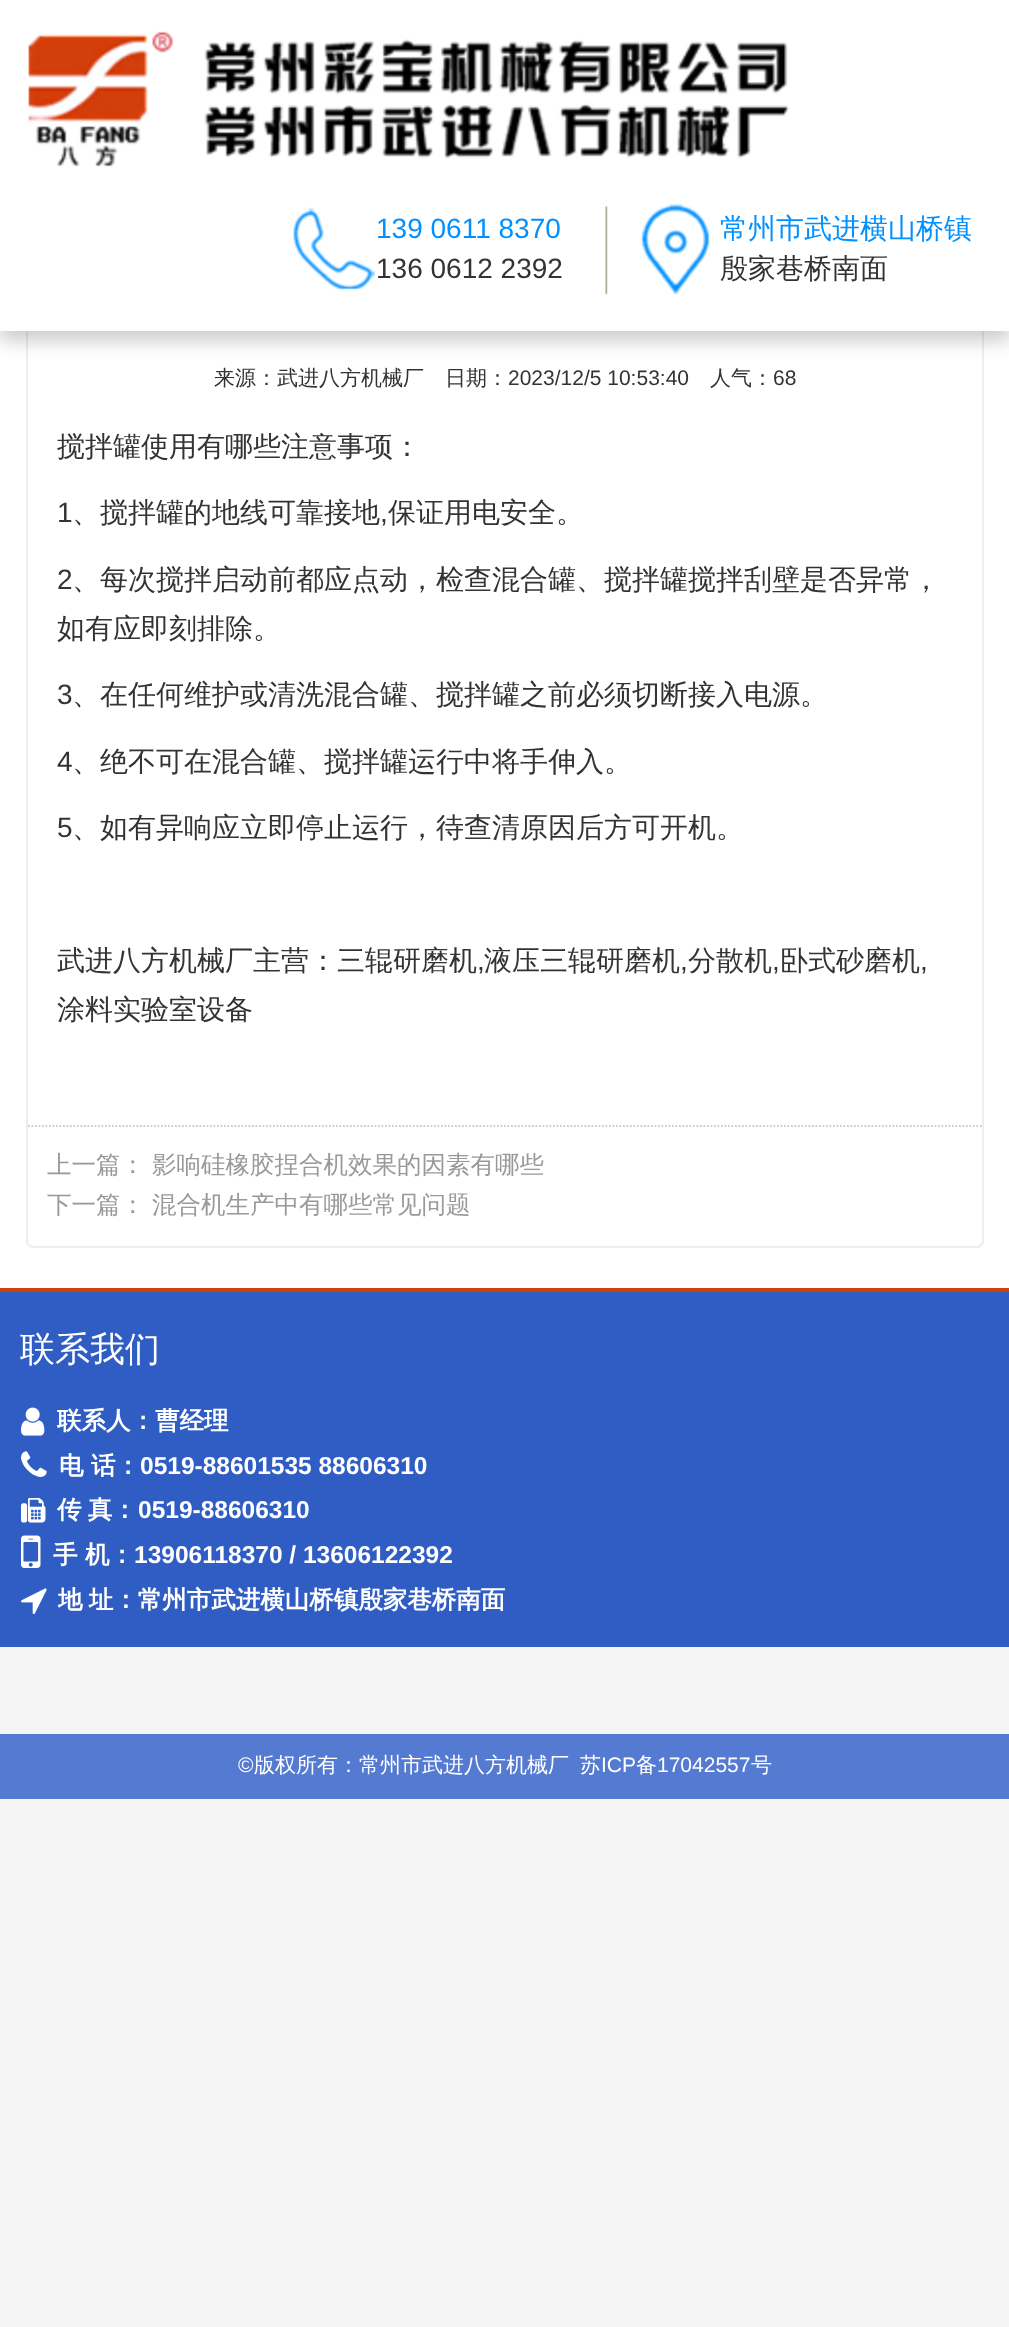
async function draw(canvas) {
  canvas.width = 1009;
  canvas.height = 2327;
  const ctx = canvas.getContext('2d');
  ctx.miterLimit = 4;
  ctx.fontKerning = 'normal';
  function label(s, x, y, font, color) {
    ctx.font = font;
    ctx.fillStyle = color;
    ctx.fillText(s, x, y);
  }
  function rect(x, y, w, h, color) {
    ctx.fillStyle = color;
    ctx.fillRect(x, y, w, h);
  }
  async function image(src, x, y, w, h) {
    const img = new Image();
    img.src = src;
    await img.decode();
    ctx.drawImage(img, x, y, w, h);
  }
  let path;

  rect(0, 0, 1009, 2327, '#f5f5f5');
  rect(0, 331, 1009, 957, '#fff');
  ctx.beginPath();
  ctx.roundRect(27, 181, 956, 1066, 6);
  ctx.strokeStyle = '#eee';
  ctx.lineWidth = 2;
  ctx.stroke();
  ctx.fillStyle = '#00000033';
  ctx.filter = 'blur(9px)';
  ctx.beginPath();
  ctx.rect(0, 11, 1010, 330);
  ctx.fill();
  ctx.filter = 'none';
  rect(0, 0, 1009, 331, '#fff');
  await image('assets/img1.png', 28, 31, 761, 136);
  await image('assets/img2.png', 293, 207, 83, 83);
  label('139 0611 8370', 376, 238, '28px Liberation Sans', '#0090ff');
  label('136 0612 2392', 376, 278, '28px Liberation Sans', '#333');
  await image('assets/img3.png', 605, 206, 3, 89);
  await image('assets/img4.png', 641, 204, 69, 91);
  label('常州市武进横山桥镇', 720, 238, '500 28px WenQuanYi Zen Hei', '#0090ff');
  label('殷家巷桥南面', 720, 278, '500 28px WenQuanYi Zen Hei', '#333');
  label('来源：武进八方机械厂　日期：', 214, 385, '500 21px WenQuanYi Zen Hei', '#333');
  label('2023/12/5 10:53:40', 508, 385, '21px Liberation Sans', '#333');
  label('人气：', 710, 385, '500 21px WenQuanYi Zen Hei', '#333');
  label('68', 773, 385, '21px Liberation Sans', '#333');
  label('搅拌罐使用有哪些注意事项：', 57, 456, '500 28px WenQuanYi Zen Hei', '#333');
  label('1', 57, 522, '28px Liberation Sans', '#333');
  label('、搅拌罐的地线可靠接地', 72, 522, '500 28px WenQuanYi Zen Hei', '#333');
  label(',', 380, 522, '28px Liberation Sans', '#333');
  label('保证用电安全。', 388, 522, '500 28px WenQuanYi Zen Hei', '#333');
  label('2', 57, 589, '28px Liberation Sans', '#333');
  label('、每次搅拌启动前都应点动，检查混合罐、搅拌罐搅拌刮壁是否异常，', 72, 589, '500 28px WenQuanYi Zen Hei', '#333');
  label('如有应即刻排除。', 57, 638, '500 28px WenQuanYi Zen Hei', '#333');
  label('3', 57, 704, '28px Liberation Sans', '#333');
  label('、在任何维护或清洗混合罐、搅拌罐之前必须切断接入电源。', 72, 704, '500 28px WenQuanYi Zen Hei', '#333');
  label('4', 57, 771, '28px Liberation Sans', '#333');
  label('、绝不可在混合罐、搅拌罐运行中将手伸入。', 72, 771, '500 28px WenQuanYi Zen Hei', '#333');
  label('5', 57, 837, '28px Liberation Sans', '#333');
  label('、如有异响应立即停止运行，待查清原因后方可开机。', 72, 837, '500 28px WenQuanYi Zen Hei', '#333');
  label('武进八方机械厂主营：三辊研磨机', 57, 970, '500 28px WenQuanYi Zen Hei', '#333');
  label(',', 477, 970, '28px Liberation Sans', '#333');
  label('液压三辊研磨机', 484, 970, '500 28px WenQuanYi Zen Hei', '#333');
  label(',', 680, 970, '28px Liberation Sans', '#333');
  label('分散机', 688, 970, '500 28px WenQuanYi Zen Hei', '#333');
  label(',', 772, 970, '28px Liberation Sans', '#333');
  label('卧式砂磨机', 780, 970, '500 28px WenQuanYi Zen Hei', '#333');
  label(',', 920, 970, '28px Liberation Sans', '#333');
  label('涂料实验室设备', 57, 1019, '500 28px WenQuanYi Zen Hei', '#333');
  path = new Path2D('M28 1126H982');
  ctx.strokeStyle = '#ccc';
  ctx.lineWidth = 1.8;
  ctx.setLineDash([1.75, 1.75]);
  ctx.stroke(path);
  label('上一篇：', 47, 1173, '500 24.5px WenQuanYi Zen Hei', '#999');
  label('影响硅橡胶捏合机效果的因素有哪些', 152, 1173, '500 24.5px WenQuanYi Zen Hei', '#999');
  label('下一篇：', 47, 1213, '500 24.5px WenQuanYi Zen Hei', '#999');
  label('混合机生产中有哪些常见问题', 152, 1213, '500 24.5px WenQuanYi Zen Hei', '#999');
  rect(0, 1292, 1009, 355, '#305dc4');
  rect(0, 1288, 1009, 4, '#d33f0c');
  label('联系我们', 20, 1361, '500 35px WenQuanYi Zen Hei', '#fff');
  await image('assets/img5.png', 21, 1407, 24, 29);
  label('联系人：曹经理', 57, 1429, 'bold 24.5px WenQuanYi Zen Hei', '#fff');
  await image('assets/img6.png', 21, 1451, 26, 26);
  label('电', 59, 1474, 'bold 24.5px WenQuanYi Zen Hei', '#fff');
  label('话：', 91, 1474, 'bold 24.5px WenQuanYi Zen Hei', '#fff');
  label('0519-88601535 88606310', 140, 1474, 'bold 24.5px Liberation Sans', '#fff');
  await image('assets/img7.png', 21, 1498, 25, 25);
  ctx.wordSpacing = '-1px';
  label('传 真：', 57, 1518, 'bold 24.5px WenQuanYi Zen Hei', '#fff');
  ctx.wordSpacing = '0px';
  label('0519-88606310', 138, 1518, 'bold 24.5px Liberation Sans', '#fff');
  await image('assets/img8.png', 21, 1535, 20, 33);
  label('手', 53, 1563, 'bold 24.5px WenQuanYi Zen Hei', '#fff');
  label('机：', 85, 1563, 'bold 24.5px WenQuanYi Zen Hei', '#fff');
  label('13906118370 / 13606122392', 134, 1563, 'bold 24.5px Liberation Sans', '#fff');
  await image('assets/img9.png', 21, 1588, 26, 27);
  ctx.wordSpacing = '-1px';
  label('地 址：常州市武进横山桥镇殷家巷桥南面', 58, 1608, 'bold 24.5px WenQuanYi Zen Hei', '#fff');
  rect(0, 1734, 1009, 65, '#547ad2');
  ctx.wordSpacing = '0px';
  label('©', 238, 1772, '21px Liberation Sans', '#fff');
  label('版权所有：常州市武进八方机械厂', 254, 1772, '500 21px WenQuanYi Zen Hei', '#fff');
  label('苏', 580, 1772, '500 21px WenQuanYi Zen Hei', '#fff');
  label('ICP', 601, 1772, '21px Liberation Sans', '#fff');
  label('备', 636, 1772, '500 21px WenQuanYi Zen Hei', '#fff');
  label('17042557', 657, 1772, '21px Liberation Sans', '#fff');
  label('号', 751, 1772, '500 21px WenQuanYi Zen Hei', '#fff');
}

draw(document.querySelector('canvas'));
